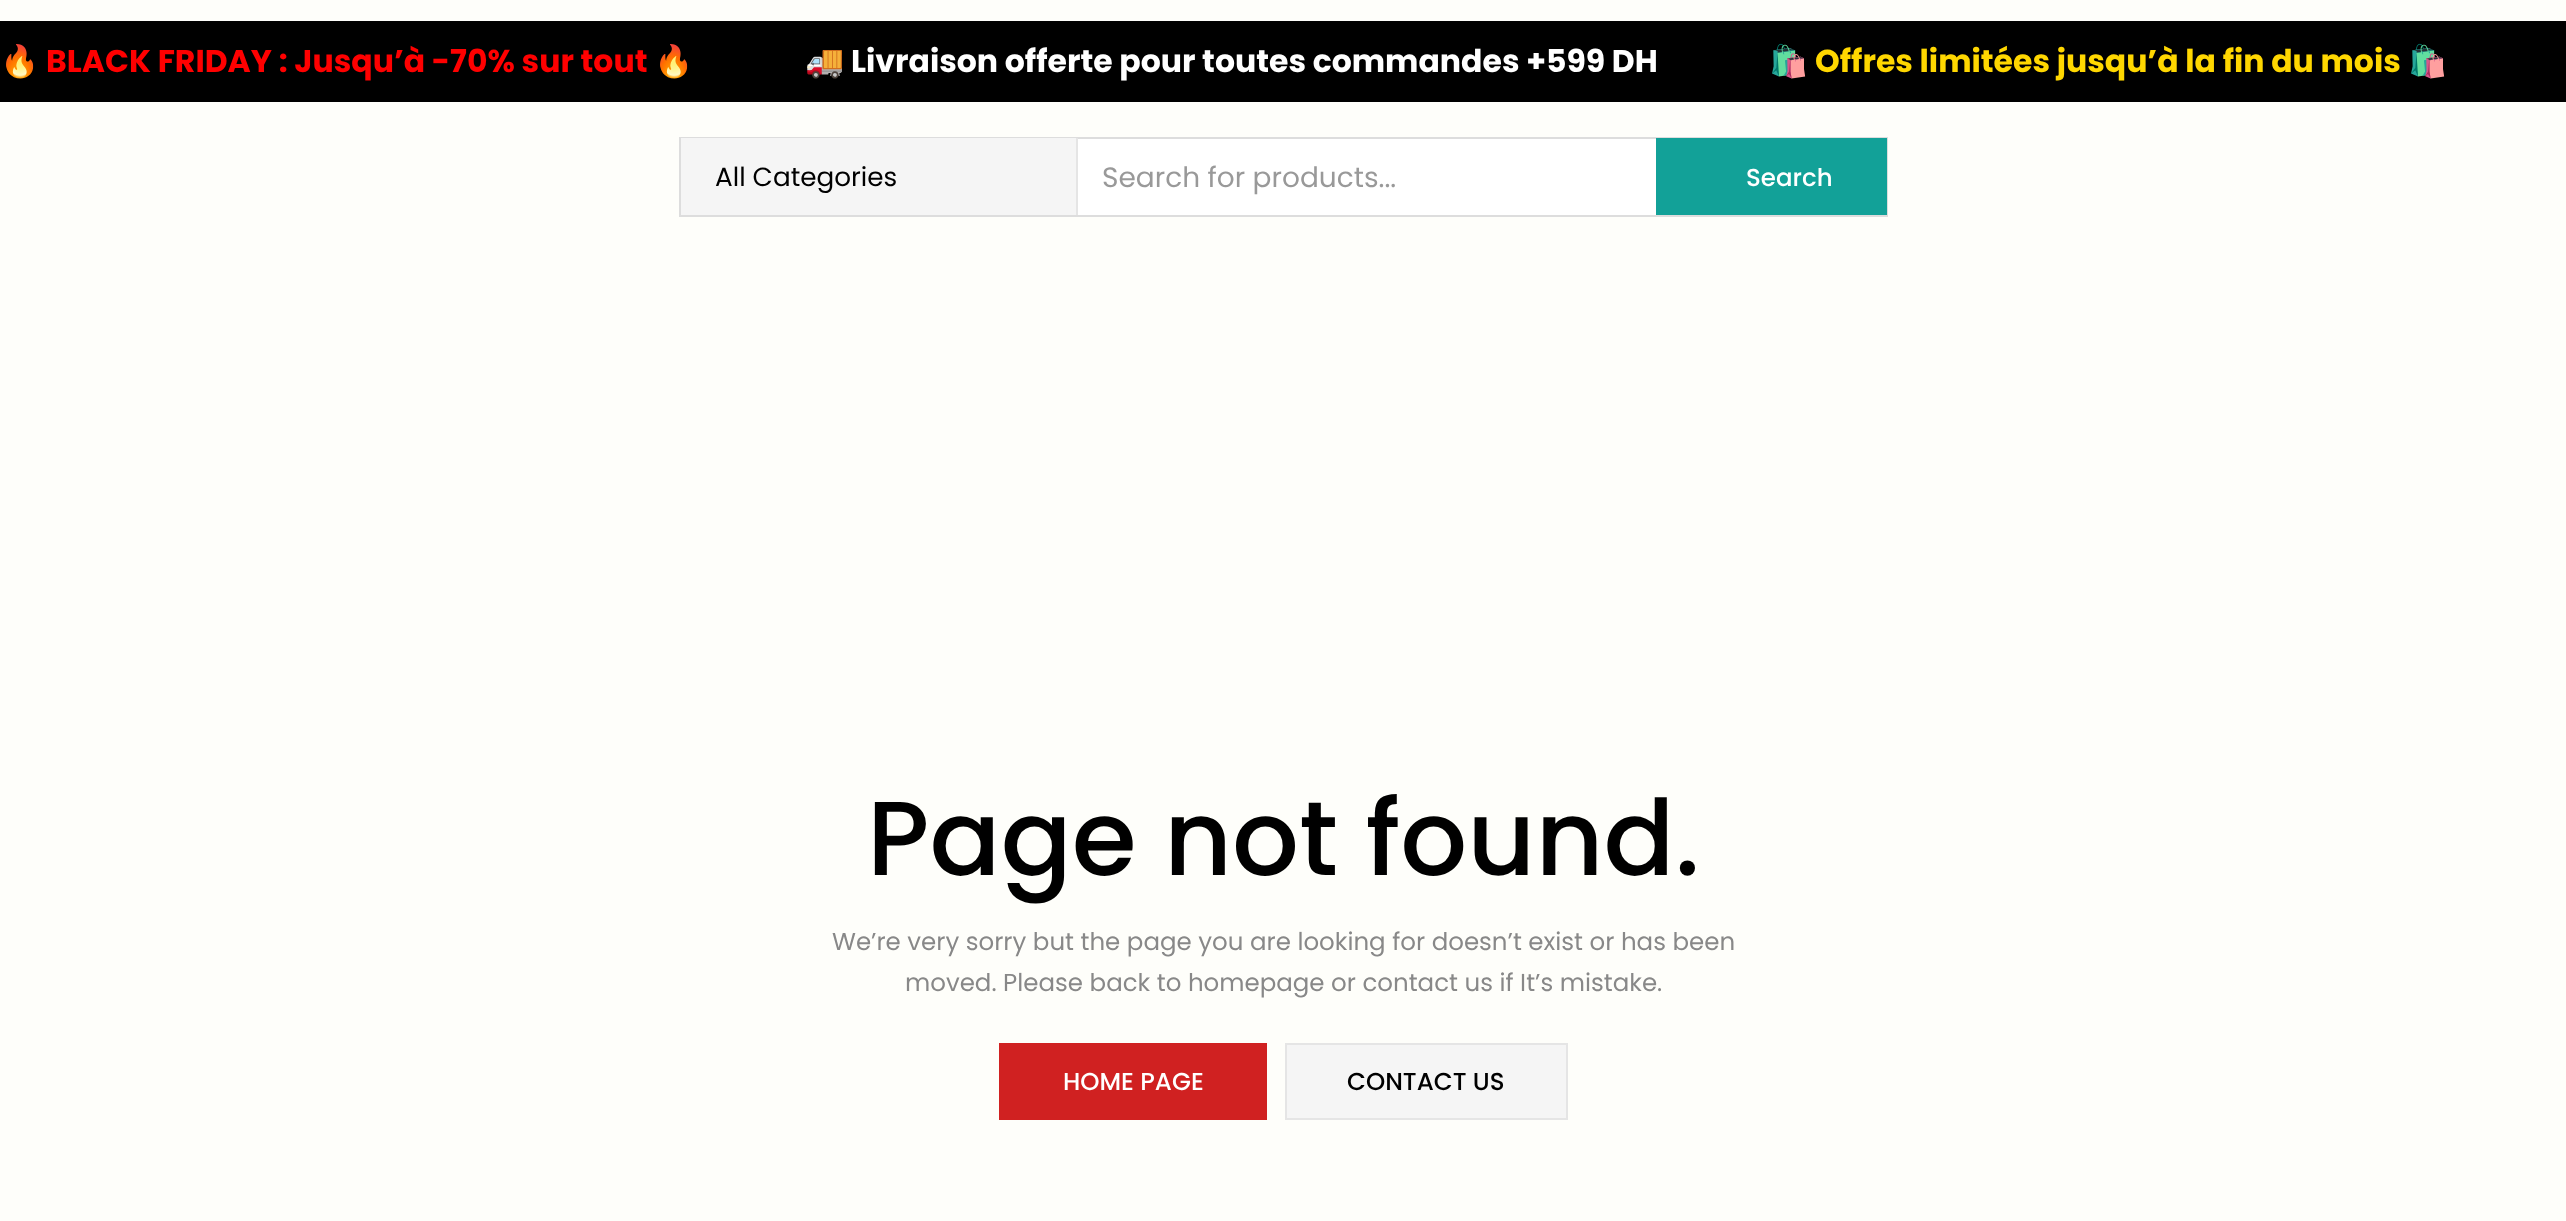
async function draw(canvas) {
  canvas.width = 2566;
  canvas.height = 1221;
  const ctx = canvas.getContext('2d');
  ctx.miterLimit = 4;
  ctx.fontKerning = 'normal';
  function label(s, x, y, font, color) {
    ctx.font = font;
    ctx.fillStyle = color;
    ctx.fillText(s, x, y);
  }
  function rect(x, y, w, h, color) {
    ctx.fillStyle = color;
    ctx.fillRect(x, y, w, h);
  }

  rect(0, 0, 2566, 1221, '#fefefa');
  rect(0, 21, 2566, 81, '#000');
  label('🔥', 0, 72, 'bold 31.5px Noto Color Emoji', '#f00');
  label('BLACK FRIDAY : Jusqu’à -70% sur tout', 46, 72, 'bold 31.5px Poppins', '#f00');
  label('🔥', 654, 72, 'bold 31.5px Noto Color Emoji', '#f00');
  label('🚚', 805, 72, 'bold 31.5px Noto Color Emoji', '#fff');
  label('Livraison offerte pour toutes commandes +599 DH', 851, 72, 'bold 31.5px Poppins', '#fff');
  label('🛍️', 1769, 72, 'bold 31.5px Noto Color Emoji', '#ffd700');
  label('Offres limitées jusqu’à la fin du mois', 1815, 72, 'bold 31.5px Poppins', '#ffd700');
  label('🛍️', 2408, 72, 'bold 31.5px Noto Color Emoji', '#ffd700');
  rect(1078, 139, 578, 76, '#fff');
  ctx.strokeStyle = '#ddd';
  ctx.lineWidth = 2;
  ctx.strokeRect(680, 138, 1207, 78);
  rect(681, 138, 395, 77, '#f5f5f5');
  rect(1076, 138, 2, 77, '#e5e5e5');
  label('All Categories', 715, 186, '26.25px Poppins', '#000');
  label('Search for products...', 1102, 187, '28px Poppins', '#999');
  rect(1656, 138, 231, 77, '#12a198');
  label('Search', 1746, 186, '500 24.5px Poppins', '#fff');
  label('Page not found.', 867, 875, '500 105px Poppins', '#000');
  label('We’re very sorry but the page you are looking for doesn’t exist or has been', 832, 950, '24.5px Poppins', '#888');
  label('moved. Please back to homepage or contact us if It’s mistake.', 905, 991, '24.5px Poppins', '#888');
  rect(999, 1043, 268, 77, '#d02121');
  label('HOME PAGE', 1063, 1090, '500 24.5px Poppins', '#fff');
  ctx.fillStyle = '#f5f5f5';
  ctx.beginPath();
  ctx.rect(1286, 1044, 281, 75);
  ctx.fill();
  ctx.strokeStyle = '#e5e5e5';
  ctx.stroke();
  label('CONTACT US', 1347, 1090, '500 24.5px Poppins', '#000');
}

draw(document.querySelector('canvas'));
